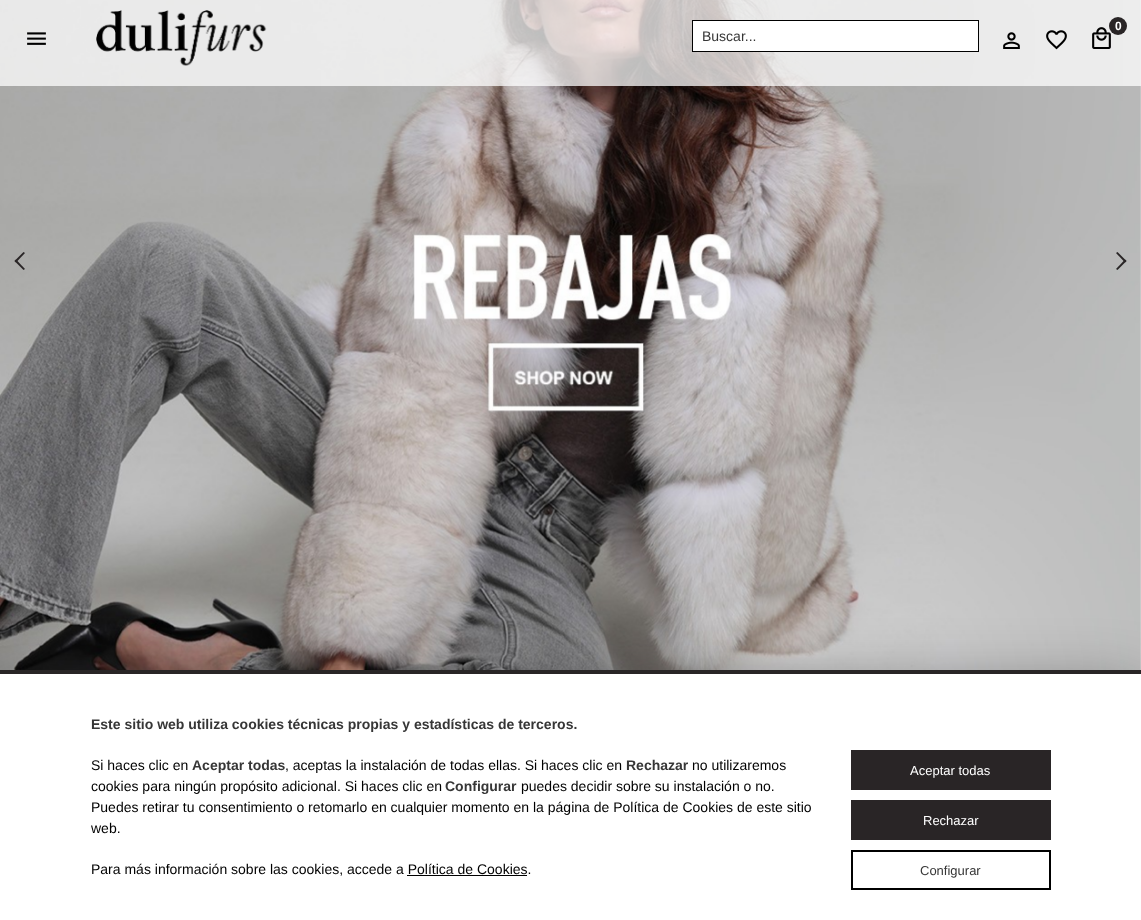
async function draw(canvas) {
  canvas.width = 1141;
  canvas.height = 920;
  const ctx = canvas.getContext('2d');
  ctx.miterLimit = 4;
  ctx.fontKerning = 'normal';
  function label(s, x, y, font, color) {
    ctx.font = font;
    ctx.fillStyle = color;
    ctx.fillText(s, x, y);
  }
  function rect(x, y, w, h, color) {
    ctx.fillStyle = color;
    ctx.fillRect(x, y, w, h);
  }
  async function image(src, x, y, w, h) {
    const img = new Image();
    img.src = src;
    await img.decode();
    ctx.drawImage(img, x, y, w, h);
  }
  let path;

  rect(0, 0, 1141, 920, '#fff');
  await image('assets/img1.png', 0, 0, 1141, 670);
  ctx.fillStyle = '#292526';
  path = new Path2D('M14.5 261L23.5 252L25 253L16 262.5Z');
  ctx.fill(path);
  path = new Path2D('M14.5 261L16 259.5L25 269L23.5 270Z');
  ctx.fill(path);
  path = new Path2D('M1116 253L1117.5 252L1126.5 261L1125 262.5Z');
  ctx.fill(path);
  path = new Path2D('M1116 269L1125 259.5L1126.5 261L1117.5 270Z');
  ctx.fill(path);
  rect(0, 0, 1141, 86, '#ffffffbd');
  await image('assets/img2.png', 27, 32, 19, 13);
  await image('assets/img3.png', 96, 10, 171, 56);
  await image('assets/img4.png', 1092, 27, 19, 22);
  ctx.fillStyle = '#292526';
  ctx.beginPath();
  ctx.arc(1118, 26, 9, 0, 2 * Math.PI);
  ctx.fill();
  label('0', 1115, 30, 'bold 12px Liberation Sans', '#fff');
  await image('assets/img5.png', 1003, 32, 17, 17);
  await image('assets/img6.png', 1046, 30, 21, 20);
  ctx.strokeStyle = '#000';
  ctx.strokeRect(692.5, 20.5, 286, 31);
  rect(693, 21, 285, 30, '#fff');
  label('Buscar...', 702, 41, '14px Liberation Sans', '#363636');
  ctx.fillStyle = '#000000b3';
  ctx.filter = 'blur(37.5px)';
  ctx.beginPath();
  ctx.rect(0, 705, 1141, 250);
  ctx.fill();
  ctx.filter = 'none';
  rect(0, 674, 1141, 246, '#fff');
  rect(0, 670, 1141, 4, '#292526');
  label('Este sitio web utiliza cookies técnicas propias y estadísticas de terceros.', 91, 729, 'bold 14px Liberation Sans', '#363636');
  label('Si haces clic en', 91, 770, '14px Liberation Sans', '#000');
  label('Aceptar todas', 192, 770, 'bold 14px Liberation Sans', '#363636');
  label(', aceptas la instalación de todas ellas. Si haces clic en', 285, 770, '14px Liberation Sans', '#000');
  label('Rechazar', 626, 770, 'bold 14px Liberation Sans', '#363636');
  label('no utilizaremos', 692, 770, '14px Liberation Sans', '#000');
  label('cookies para ningún propósito adicional. Si haces clic en', 91, 791, '14px Liberation Sans', '#000');
  label('Configurar', 445, 791, 'bold 14px Liberation Sans', '#363636');
  label('puedes decidir sobre su instalación o no.', 521, 791, '14px Liberation Sans', '#000');
  label('Puedes retirar tu consentimiento o retomarlo en cualquier momento en la página de Política de Cookies de este sitio', 91, 812, '14px Liberation Sans', '#000');
  label('web.', 91, 833, '14px Liberation Sans', '#000');
  label('Para más información sobre las cookies, accede a Política de Cookies.', 91, 874, '14px Liberation Sans', '#000');
  rect(407, 875, 120, 1, '#000');
  rect(851, 750, 200, 40, '#292526');
  label('Aceptar todas', 910, 775, '13px Liberation Sans', '#fff');
  rect(851, 800, 200, 40, '#292526');
  label('Rechazar', 923, 825, '13px Liberation Sans', '#fff');
  ctx.lineWidth = 2;
  ctx.strokeRect(852, 851, 198, 38);
  label('Configurar', 920, 875, '13px Liberation Sans', '#363636');
}

draw(document.querySelector('canvas'));
